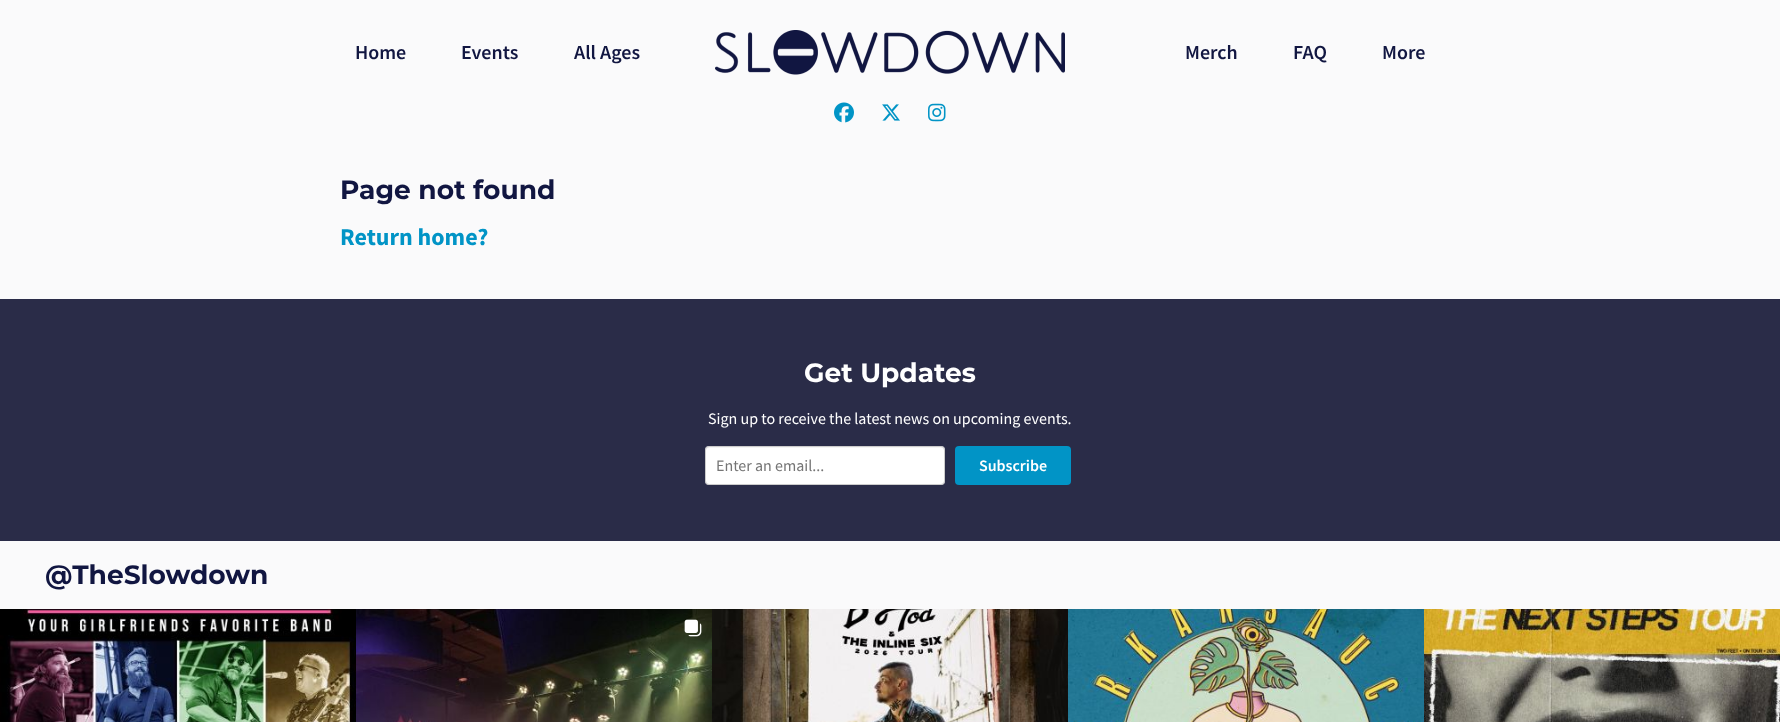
async function draw(canvas) {
  canvas.width = 1780;
  canvas.height = 722;
  const ctx = canvas.getContext('2d');
  ctx.miterLimit = 4;
  ctx.fontKerning = 'normal';
  function label(s, x, y, font, color) {
    ctx.font = font;
    ctx.fillStyle = color;
    ctx.fillText(s, x, y);
  }
  function rect(x, y, w, h, color) {
    ctx.fillStyle = color;
    ctx.fillRect(x, y, w, h);
  }
  function roundedRect(x, y, w, h, r, color) {
    ctx.fillStyle = color;
    ctx.beginPath();
    ctx.roundRect(x, y, w, h, r);
    ctx.fill();
  }
  async function image(src, x, y, w, h) {
    const img = new Image();
    img.src = src;
    await img.decode();
    ctx.drawImage(img, x, y, w, h);
  }
  let path;

  rect(0, 0, 1780, 722, '#fafafb');
  label('Home', 355, 59, '600 20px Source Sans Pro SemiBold', '#111641');
  label('Events', 461, 59, '600 20px Source Sans Pro SemiBold', '#111641');
  label('All Ages', 574, 59, '600 20px Source Sans Pro SemiBold', '#111641');
  await image('assets/img1.png', 715, 30, 350, 45);
  label('Merch', 1185, 59, '600 20px Source Sans Pro SemiBold', '#111641');
  label('FAQ', 1293, 59, '600 20px Source Sans Pro SemiBold', '#111641');
  label('More', 1382, 59, '600 20px Source Sans Pro SemiBold', '#111641');
  await image('assets/img2.png', 834, 102, 20, 21);
  await image('assets/img3.png', 882, 104, 18, 17);
  await image('assets/img4.png', 928, 103, 18, 19);
  label('Page not found', 340, 199, 'bold 26.5px Montserrat', '#111641');
  label('Return home?', 340, 245, 'bold 24px Source Sans Pro', '#0194c6');
  rect(0, 299, 1780, 242, '#2a2c48');
  label('Get Updates', 804, 382, 'bold 26.5px Montserrat', '#fff');
  label('Sign up to receive the latest news on upcoming events.', 708, 424, '16px Source Sans Pro', '#fff');
  roundedRect(705, 446, 240, 39, 4, '#fff');
  ctx.fillStyle = '#f5f5f5';
  path = new Path2D('M709 448H942L944 449V451C944 449 943 447 941 447H709C707 447 706 449 706 451C706 449 707 448 709 448Z');
  ctx.fill(path);
  ctx.beginPath();
  ctx.roundRect(705.5, 446.5, 239, 38, 3.5);
  ctx.strokeStyle = '#00000033';
  ctx.stroke();
  label('Enter an email...', 716, 471, '16px Source Sans Pro', '#757575');
  roundedRect(955, 446, 116, 39, 4, '#0194c6');
  label('Subscribe', 979, 471, '600 16px Source Sans Pro SemiBold', '#fff');
  label('@TheSlowdown', 45, 584, 'bold 26.5px Montserrat', '#111641');
  await image('assets/img5.png', 0, 609, 356, 113);
  await image('assets/img6.png', 356, 609, 356, 113);
  await image('assets/img7.png', 684, 619, 18, 18);
  await image('assets/img8.png', 712, 609, 356, 113);
  await image('assets/img9.png', 1068, 609, 356, 113);
  await image('assets/img10.png', 1424, 609, 356, 113);
}

draw(document.querySelector('canvas'));
